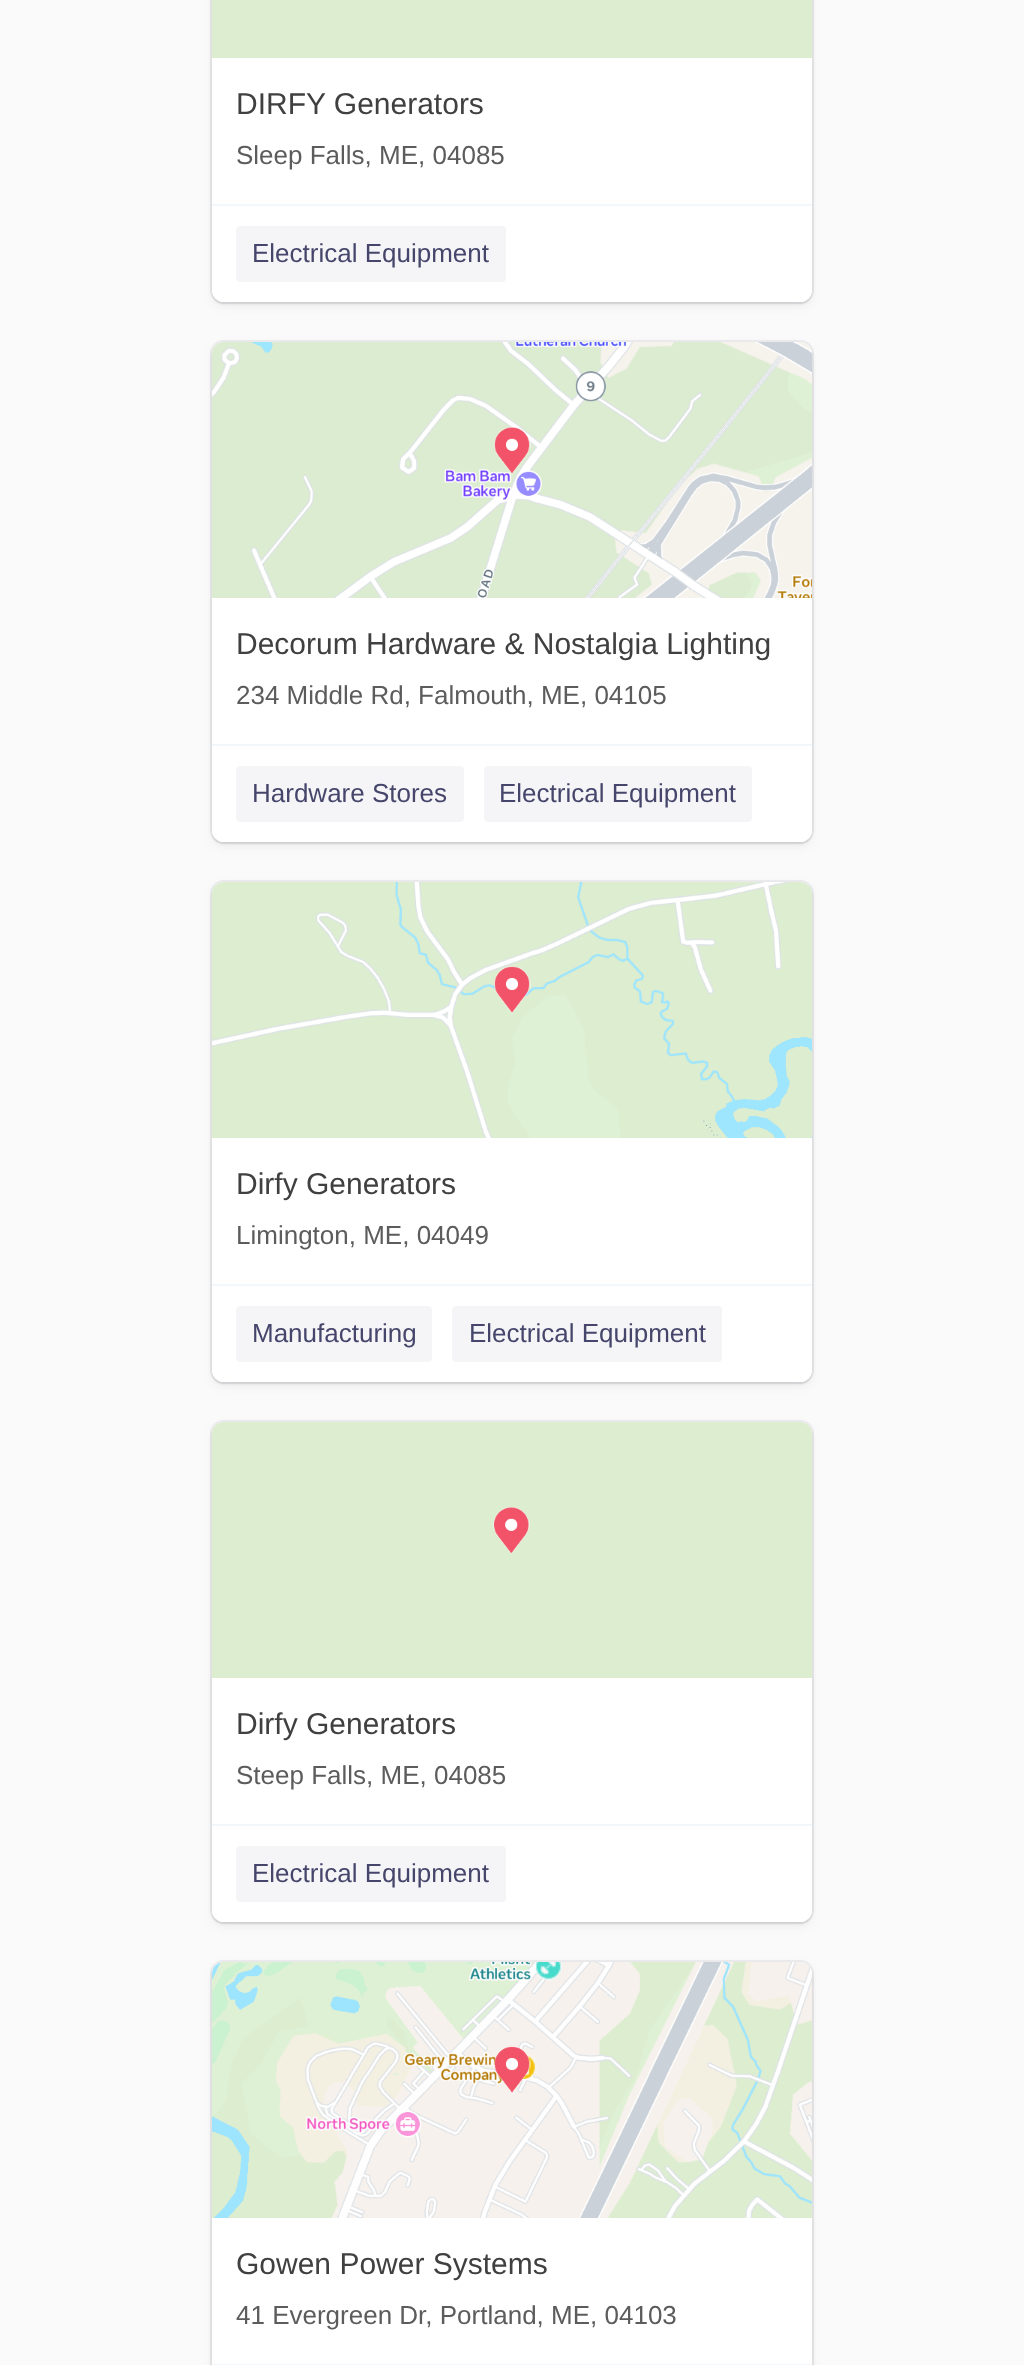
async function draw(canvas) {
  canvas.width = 1024;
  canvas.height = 2365;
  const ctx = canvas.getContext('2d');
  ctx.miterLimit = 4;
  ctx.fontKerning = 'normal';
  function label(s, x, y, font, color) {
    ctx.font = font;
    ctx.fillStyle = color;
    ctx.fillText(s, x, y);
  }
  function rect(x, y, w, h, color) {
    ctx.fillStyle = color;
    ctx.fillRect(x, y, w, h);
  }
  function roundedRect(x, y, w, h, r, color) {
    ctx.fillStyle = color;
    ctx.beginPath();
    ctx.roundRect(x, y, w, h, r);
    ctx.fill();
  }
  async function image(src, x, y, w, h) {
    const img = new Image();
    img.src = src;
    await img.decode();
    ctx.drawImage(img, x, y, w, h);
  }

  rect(0, 0, 1024, 2365, '#fafafa');
  ctx.fillStyle = '#3c425714';
  ctx.filter = 'blur(5px)';
  ctx.beginPath();
  ctx.roundRect(212, -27, 600, 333, 12);
  ctx.fill();
  ctx.filter = 'none';
  ctx.beginPath();
  ctx.roundRect(211, -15, 602, 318, 13);
  ctx.strokeStyle = '#3c425714';
  ctx.lineWidth = 2;
  ctx.stroke();
  ctx.fillStyle = '#00000014';
  ctx.filter = 'blur(1px)';
  ctx.beginPath();
  ctx.roundRect(212, -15, 600, 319, 12);
  ctx.fill();
  ctx.filter = 'none';
  roundedRect(212, -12, 600, 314, 12, '#fff');
  rect(212, 0, 600, 58, '#dcedd0');
  label('DIRFY Generators', 236, 114, '30px Liberation Sans', '#404040');
  label('Sleep Falls, ME, 04085', 236, 164, '26px Liberation Sans', '#5c5c5c');
  ctx.fillStyle = '#fff';
  ctx.beginPath();
  ctx.roundRect(212, 204, 600, 98, [0, 0, 12, 12]);
  ctx.fill();
  rect(212, 204, 600, 2, '#f1f7fb');
  roundedRect(236, 226, 270, 56, 4, '#f5f5f7');
  label('Electrical Equipment', 252, 262, '26px Liberation Sans', '#46466c');
  ctx.fillStyle = '#3c425714';
  ctx.filter = 'blur(5px)';
  ctx.beginPath();
  ctx.roundRect(212, 346, 600, 500, 12);
  ctx.fill();
  ctx.filter = 'none';
  ctx.beginPath();
  ctx.roundRect(211, 341, 602, 502, 13);
  ctx.stroke();
  ctx.fillStyle = '#00000014';
  ctx.filter = 'blur(1px)';
  ctx.beginPath();
  ctx.roundRect(212, 344, 600, 500, 12);
  ctx.fill();
  ctx.filter = 'none';
  roundedRect(212, 342, 600, 500, 12, '#fff');
  await image('assets/img1.png', 212, 342, 600, 256);
  label('Decorum Hardware & Nostalgia Lighting', 236, 654, '30px Liberation Sans', '#404040');
  label('234 Middle Rd, Falmouth, ME, 04105', 236, 704, '26px Liberation Sans', '#5c5c5c');
  ctx.fillStyle = '#fff';
  ctx.beginPath();
  ctx.roundRect(212, 744, 600, 98, [0, 0, 12, 12]);
  ctx.fill();
  rect(212, 744, 600, 2, '#f1f7fb');
  roundedRect(236, 766, 228, 56, 4, '#f5f5f7');
  label('Hardware Stores', 252, 802, '26px Liberation Sans', '#46466c');
  roundedRect(484, 766, 268, 56, 4, '#f5f5f7');
  label('Electrical Equipment', 499, 802, '26px Liberation Sans', '#46466c');
  ctx.fillStyle = '#3c425714';
  ctx.filter = 'blur(5px)';
  ctx.beginPath();
  ctx.roundRect(212, 886, 600, 500, 12);
  ctx.fill();
  ctx.filter = 'none';
  ctx.beginPath();
  ctx.roundRect(211, 881, 602, 502, 13);
  ctx.stroke();
  ctx.fillStyle = '#00000014';
  ctx.filter = 'blur(1px)';
  ctx.beginPath();
  ctx.roundRect(212, 884, 600, 500, 12);
  ctx.fill();
  ctx.filter = 'none';
  roundedRect(212, 882, 600, 500, 12, '#fff');
  await image('assets/img2.png', 212, 882, 600, 256);
  label('Dirfy Generators', 236, 1194, '30px Liberation Sans', '#404040');
  label('Limington, ME, 04049', 236, 1244, '26px Liberation Sans', '#5c5c5c');
  ctx.fillStyle = '#fff';
  ctx.beginPath();
  ctx.roundRect(212, 1284, 600, 98, [0, 0, 12, 12]);
  ctx.fill();
  rect(212, 1284, 600, 2, '#f1f7fb');
  roundedRect(236, 1306, 196, 56, 4, '#f5f5f7');
  label('Manufacturing', 252, 1342, '26px Liberation Sans', '#46466c');
  roundedRect(452, 1306, 270, 56, 4, '#f5f5f7');
  label('Electrical Equipment', 469, 1342, '26px Liberation Sans', '#46466c');
  ctx.fillStyle = '#3c425714';
  ctx.filter = 'blur(5px)';
  ctx.beginPath();
  ctx.roundRect(212, 1426, 600, 500, 12);
  ctx.fill();
  ctx.filter = 'none';
  ctx.beginPath();
  ctx.roundRect(211, 1421, 602, 502, 13);
  ctx.stroke();
  ctx.fillStyle = '#00000014';
  ctx.filter = 'blur(1px)';
  ctx.beginPath();
  ctx.roundRect(212, 1424, 600, 500, 12);
  ctx.fill();
  ctx.filter = 'none';
  roundedRect(212, 1422, 600, 500, 12, '#fff');
  await image('assets/img3.png', 212, 1422, 600, 256);
  label('Dirfy Generators', 236, 1734, '30px Liberation Sans', '#404040');
  label('Steep Falls, ME, 04085', 236, 1784, '26px Liberation Sans', '#5c5c5c');
  ctx.fillStyle = '#fff';
  ctx.beginPath();
  ctx.roundRect(212, 1824, 600, 98, [0, 0, 12, 12]);
  ctx.fill();
  rect(212, 1824, 600, 2, '#f1f7fb');
  roundedRect(236, 1846, 270, 56, 4, '#f5f5f7');
  label('Electrical Equipment', 252, 1882, '26px Liberation Sans', '#46466c');
  ctx.fillStyle = '#3c425714';
  ctx.filter = 'blur(5px)';
  ctx.beginPath();
  ctx.roundRect(212, 1966, 600, 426, 12);
  ctx.fill();
  ctx.filter = 'none';
  ctx.beginPath();
  ctx.roundRect(211, 1961, 602, 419, 13);
  ctx.stroke();
  ctx.fillStyle = '#00000014';
  ctx.filter = 'blur(1px)';
  ctx.beginPath();
  ctx.roundRect(212, 1964, 600, 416, 12);
  ctx.fill();
  ctx.filter = 'none';
  roundedRect(212, 1962, 600, 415, 12, '#fff');
  await image('assets/img4.png', 212, 1962, 600, 256);
  label('Gowen Power Systems', 236, 2274, '30px Liberation Sans', '#404040');
  label('41 Evergreen Dr, Portland, ME, 04103', 236, 2324, '26px Liberation Sans', '#5c5c5c');
  rect(212, 2364, 600, 1, '#f1f7fb');
}

draw(document.querySelector('canvas'));
